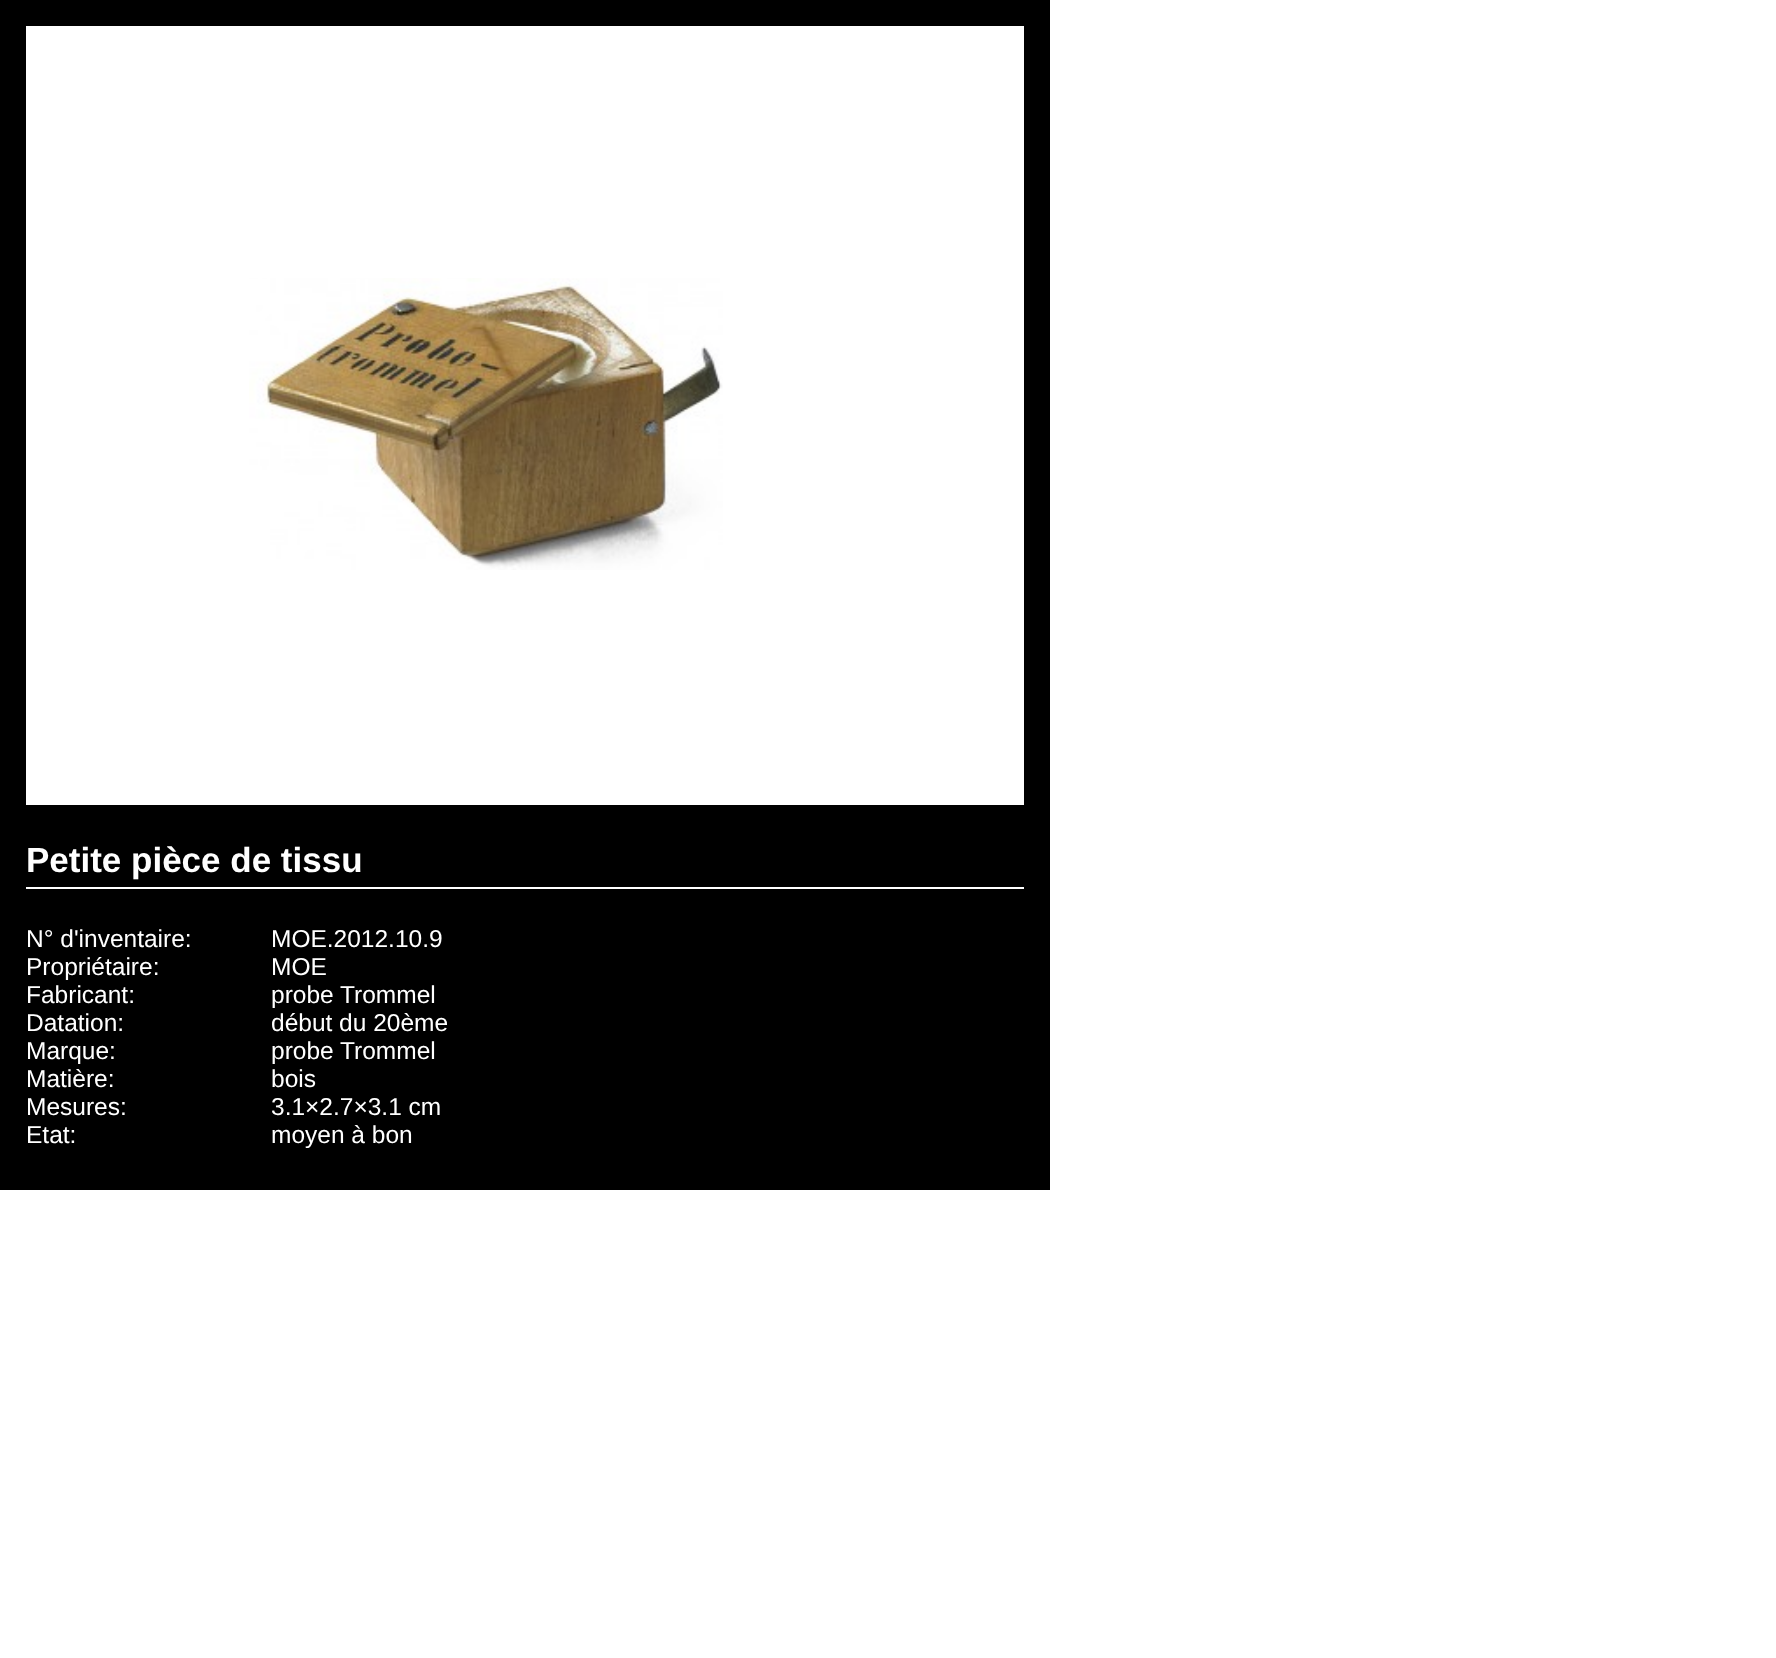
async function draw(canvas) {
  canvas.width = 1776;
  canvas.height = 1658;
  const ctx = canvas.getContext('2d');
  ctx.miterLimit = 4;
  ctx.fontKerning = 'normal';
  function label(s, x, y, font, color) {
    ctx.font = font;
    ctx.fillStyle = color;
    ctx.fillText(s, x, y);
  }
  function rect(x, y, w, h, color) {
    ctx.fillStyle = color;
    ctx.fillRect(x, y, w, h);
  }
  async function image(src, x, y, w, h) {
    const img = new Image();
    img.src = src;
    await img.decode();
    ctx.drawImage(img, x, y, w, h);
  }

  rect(0, 0, 1776, 1658, '#fff');
  rect(0, 0, 1050, 1190, '#000');
  rect(26, 26, 998, 779, '#fff');
  await image('assets/img1.png', 249, 278, 474, 292);
  rect(26, 887, 998, 2, '#fff');
  label('Petite pièce de tissu', 26, 872, 'bold 35px Liberation Sans', '#fff');
  label('N° d\'inventaire:', 26, 947, '24.5px Liberation Sans', '#fff');
  label('MOE.2012.10.9', 271, 947, '24.5px Liberation Sans', '#fff');
  label('Propriétaire:', 26, 975, '24.5px Liberation Sans', '#fff');
  label('MOE', 271, 975, '24.5px Liberation Sans', '#fff');
  label('Fabricant:', 26, 1003, '24.5px Liberation Sans', '#fff');
  label('probe Trommel', 271, 1003, '24.5px Liberation Sans', '#fff');
  label('Datation:', 26, 1031, '24.5px Liberation Sans', '#fff');
  label('début du 20ème', 271, 1031, '24.5px Liberation Sans', '#fff');
  label('Marque:', 26, 1059, '24.5px Liberation Sans', '#fff');
  label('probe Trommel', 271, 1059, '24.5px Liberation Sans', '#fff');
  label('Matière:', 26, 1087, '24.5px Liberation Sans', '#fff');
  label('bois', 271, 1087, '24.5px Liberation Sans', '#fff');
  label('Mesures:', 26, 1115, '24.5px Liberation Sans', '#fff');
  label('3.1×2.7×3.1 cm', 271, 1115, '24.5px Liberation Sans', '#fff');
  label('Etat:', 26, 1143, '24.5px Liberation Sans', '#fff');
  label('moyen à bon', 271, 1143, '24.5px Liberation Sans', '#fff');
}

draw(document.querySelector('canvas'));
